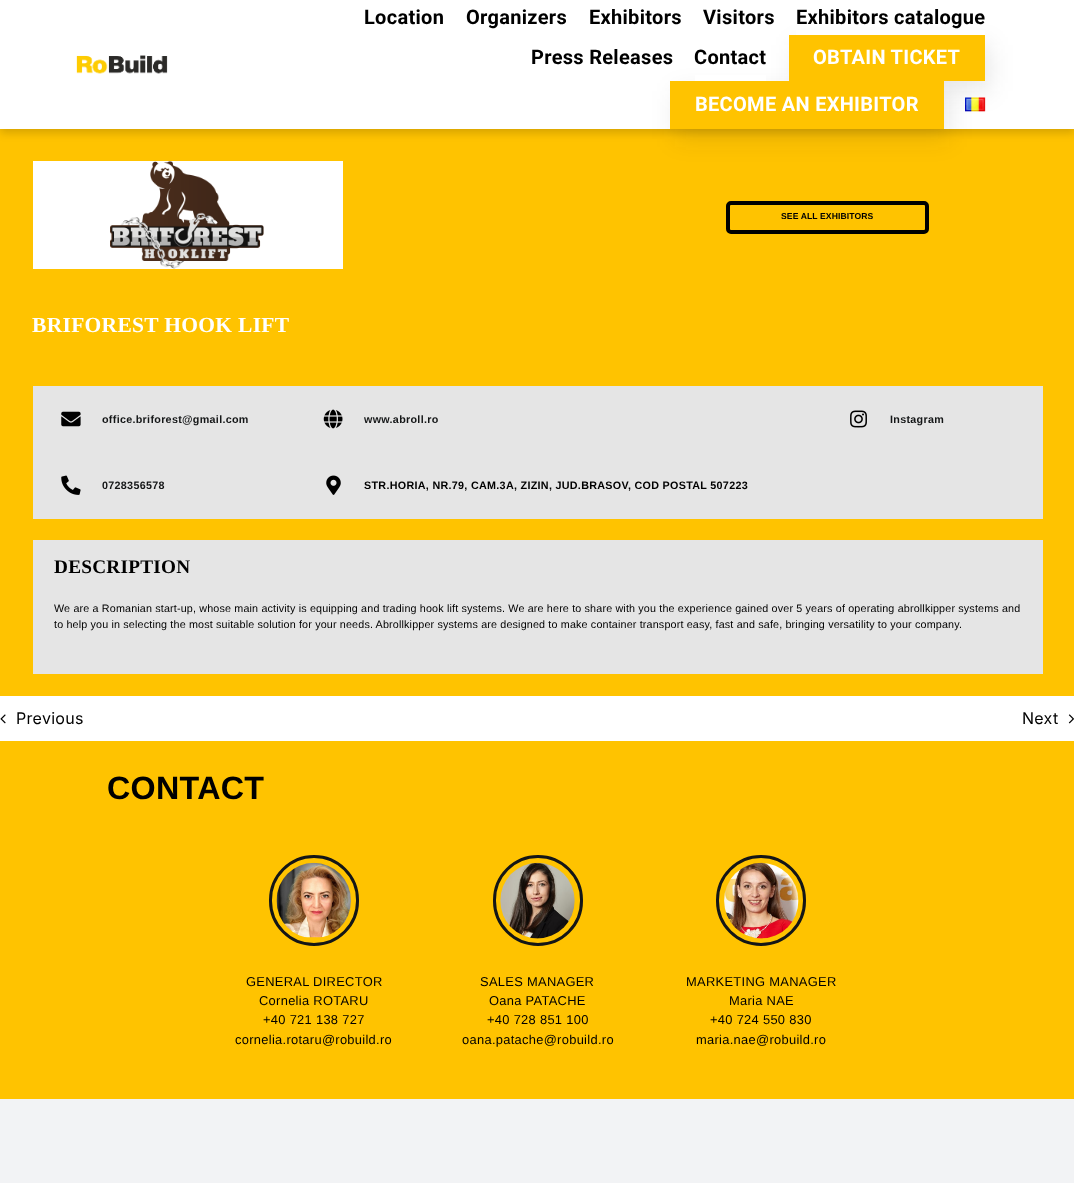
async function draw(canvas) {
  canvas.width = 1074;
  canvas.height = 1183;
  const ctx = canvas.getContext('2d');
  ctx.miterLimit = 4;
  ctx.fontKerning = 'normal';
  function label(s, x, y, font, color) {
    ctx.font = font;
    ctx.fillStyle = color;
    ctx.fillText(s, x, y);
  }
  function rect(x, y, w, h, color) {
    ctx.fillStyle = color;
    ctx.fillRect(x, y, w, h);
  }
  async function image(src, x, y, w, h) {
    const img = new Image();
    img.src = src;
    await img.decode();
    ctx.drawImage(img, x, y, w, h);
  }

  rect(0, 0, 1074, 1183, '#f2f3f5');
  rect(0, 696, 1074, 45, '#fff');
  rect(0, 129, 1074, 567, '#ffc300');
  ctx.fillStyle = '#00000029';
  ctx.filter = 'blur(4px)';
  ctx.beginPath();
  ctx.rect(0, 4, 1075, 129);
  ctx.fill();
  ctx.filter = 'none';
  rect(0, 0, 1074, 129, '#fff');
  await image('assets/img1.png', 76, 55, 92, 19);
  ctx.letterSpacing = '0.3px';
  label('Location', 364, 24, 'bold 20px Roboto', '#000');
  label('Organizers', 466, 24, 'bold 20px Roboto', '#000');
  label('Exhibitors', 589, 24, 'bold 20px Roboto', '#000');
  ctx.fillStyle = '#1f1f1f1a';
  ctx.filter = 'blur(12.5px)';
  ctx.beginPath();
  ctx.rect(794, 45, 196, 46);
  ctx.fill();
  ctx.filter = 'none';
  label('Visitors', 703, 24, 'bold 20px Roboto', '#000');
  rect(796, 30, 189, 5, '#fff');
  label('Exhibitors catalogue', 796, 24, 'bold 20px Roboto', '#000');
  ctx.fillStyle = '#1f1f1f1a';
  ctx.filter = 'blur(12.5px)';
  ctx.beginPath();
  ctx.rect(675, 91, 274, 48);
  ctx.fill();
  ctx.filter = 'none';
  label('Press Releases', 531, 64, 'bold 20px Roboto', '#000');
  rect(695, 75, 71, 6, '#fff');
  label('Contact', 694, 64, 'bold 20px Roboto', '#000');
  rect(789, 35, 196, 46, '#ffc300');
  label('OBTAIN TICKET', 813, 64, 'bold 20px Roboto', '#fff');
  rect(670, 81, 274, 48, '#ffc300');
  label('BECOME AN EXHIBITOR', 695, 111, 'bold 20px Roboto', '#fff');
  await image('assets/img2.png', 965, 97, 21, 15);
  rect(33, 161, 310, 108, '#fff');
  await image('assets/img3.png', 110, 161, 154, 108);
  ctx.beginPath();
  ctx.roundRect(728, 203, 199, 29, 3);
  ctx.strokeStyle = '#000';
  ctx.lineWidth = 4;
  ctx.stroke();
  ctx.letterSpacing = '0.1px';
  label('SEE ALL EXHIBITORS', 781, 219, 'bold 8.6px Liberation Sans', '#000');
  ctx.letterSpacing = '0.3px';
  label('BRIFOREST HOOK LIFT', 32, 332, 'bold 21.5px Liberation Serif', '#fff');
  rect(33, 386, 1010, 133, '#e5e5e5');
  await image('assets/img4.png', 61, 411, 20, 16);
  label('office.briforest@gmail.com', 102, 423, 'bold 10.75px Liberation Sans', '#141617');
  await image('assets/img5.png', 61, 475, 20, 20);
  label('0728356578', 102, 489, 'bold 10.75px Liberation Sans', '#141617');
  await image('assets/img6.png', 323, 409, 20, 20);
  label('www.abroll.ro', 364, 423, 'bold 10.75px Liberation Sans', '#141617');
  await image('assets/img7.png', 326, 475, 15, 20);
  label('STR.HORIA, NR.79, CAM.3A, ZIZIN, JUD.BRASOV, COD POSTAL 507223', 364, 489, 'bold 10.75px Liberation Sans', '#000');
  await image('assets/img8.png', 850, 410, 17, 18);
  label('Instagram', 890, 423, 'bold 10.75px Liberation Sans', '#141617');
  rect(33, 540, 1010, 134, '#e5e5e5');
  ctx.letterSpacing = '0.25px';
  label('DESCRIPTION', 54, 573, 'bold 19.25px Liberation Serif', '#000');
  ctx.letterSpacing = '0.16px';
  label('We are a Romanian start-up, whose main activity is equipping and trading hook lift systems. We are here to share with you the experience gained over 5 years of operating abrollkipper systems and', 54, 612, '10.75px Liberation Sans', '#000');
  label('to help you in selecting the most suitable solution for your needs. Abrollkipper systems are designed to make container transport easy, fast and safe, bringing versatility to your company.', 54, 628, '10.75px Liberation Sans', '#000');
  await image('assets/img9.png', 0, 714, 6, 10);
  ctx.letterSpacing = '0.3px';
  label('Previous', 16, 724, '16px Inter', '#000');
  label('Next', 1022, 724, '16px Inter', '#000');
  await image('assets/img10.png', 1068, 714, 6, 10);
  rect(0, 741, 1074, 358, '#ffc300');
  label('CONTACT', 107, 799, 'bold 32.25px Liberation Sans', '#000');
  ctx.beginPath();
  ctx.roundRect(270.5, 856.5, 87, 88, 43.5);
  ctx.strokeStyle = '#141617';
  ctx.lineWidth = 3;
  ctx.stroke();
  await image('assets/img11.png', 276, 862, 75, 76);
  label('GENERAL DIRECTOR', 246, 986, '12.9px Liberation Sans', '#000');
  label('Cornelia ROTARU', 259, 1005, '12.9px Liberation Sans', '#000');
  label('+40 721 138 727', 263, 1024, '12.9px Liberation Sans', '#000');
  label('cornelia.rotaru@robuild.ro', 235, 1044, '12.9px Liberation Sans', '#000');
  ctx.beginPath();
  ctx.roundRect(494.5, 856.5, 87, 88, 43.5);
  ctx.stroke();
  await image('assets/img12.png', 500, 862, 75, 77);
  label('SALES MANAGER', 480, 986, '12.9px Liberation Sans', '#000');
  label('Oana PATACHE', 489, 1005, '12.9px Liberation Sans', '#000');
  label('+40 728 851 100', 487, 1024, '12.9px Liberation Sans', '#000');
  label('oana.patache@robuild.ro', 462, 1044, '12.9px Liberation Sans', '#000');
  ctx.beginPath();
  ctx.roundRect(717.5, 856.5, 87, 88, 43.5);
  ctx.stroke();
  await image('assets/img13.png', 724, 862, 75, 77);
  label('MARKETING MANAGER', 686, 986, '12.9px Liberation Sans', '#000');
  label('Maria NAE', 729, 1005, '12.9px Liberation Sans', '#000');
  label('+40 724 550 830', 710, 1024, '12.9px Liberation Sans', '#000');
  label('maria.nae@robuild.ro', 696, 1044, '12.9px Liberation Sans', '#000');
}

draw(document.querySelector('canvas'));
